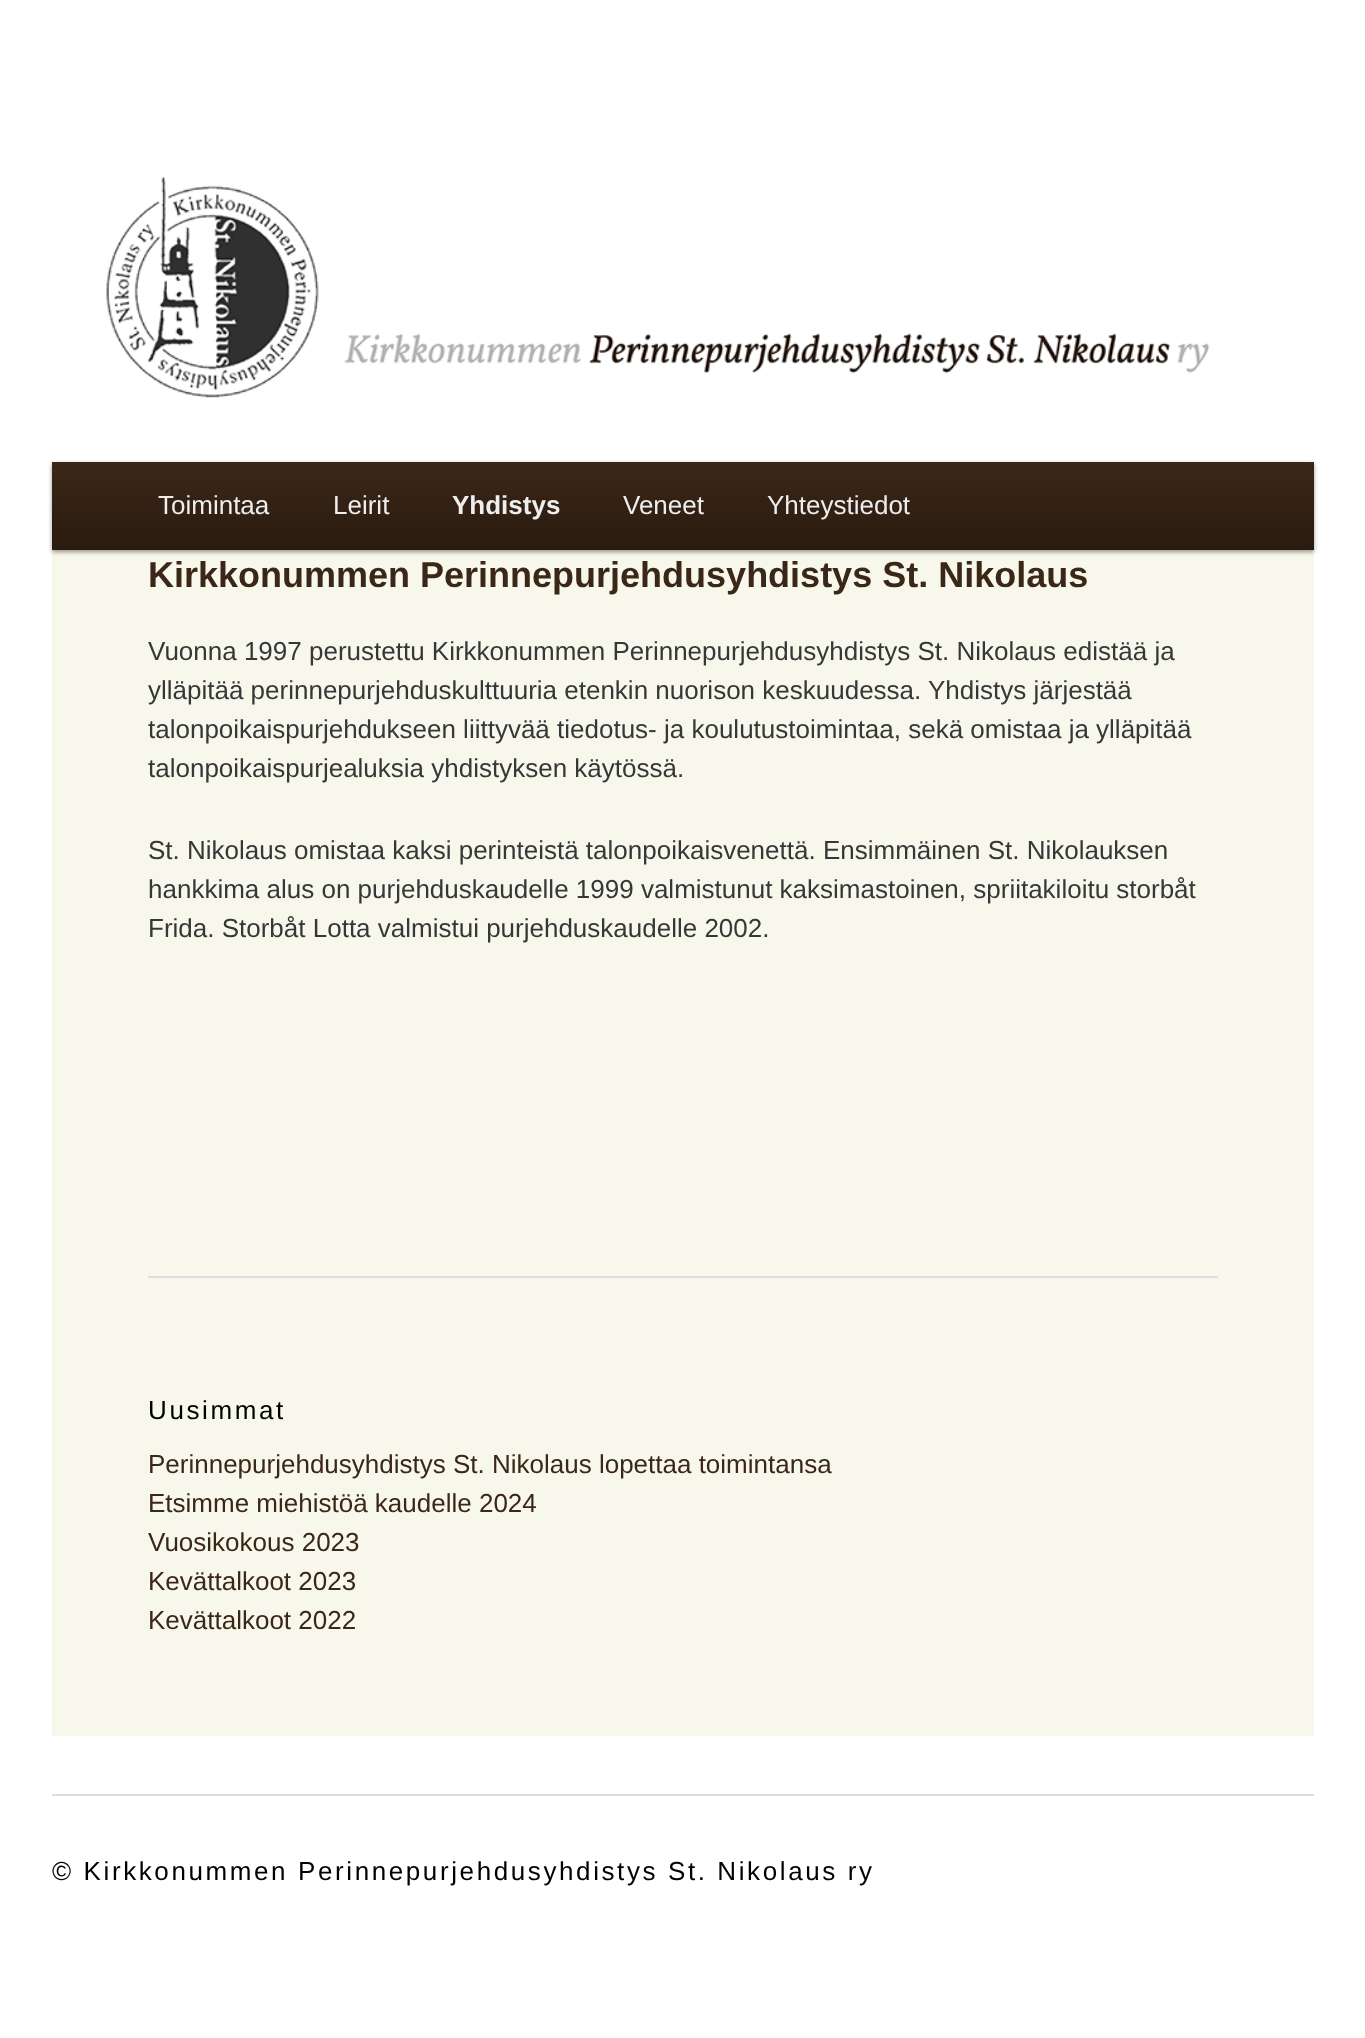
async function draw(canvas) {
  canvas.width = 1365;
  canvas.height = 2038;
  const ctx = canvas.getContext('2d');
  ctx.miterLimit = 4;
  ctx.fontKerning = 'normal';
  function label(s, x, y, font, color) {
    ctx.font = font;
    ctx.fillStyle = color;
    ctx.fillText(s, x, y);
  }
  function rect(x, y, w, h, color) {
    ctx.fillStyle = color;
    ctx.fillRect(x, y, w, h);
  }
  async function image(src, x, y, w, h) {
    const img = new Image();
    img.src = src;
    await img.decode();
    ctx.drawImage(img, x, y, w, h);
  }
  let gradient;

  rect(0, 0, 1365, 2038, '#fff');
  await image('assets/img1.png', 106, 177, 1104, 221);
  rect(52, 550, 1262, 1186, '#f7f7ec');
  ctx.fillStyle = '#00000066';
  ctx.filter = 'blur(2px)';
  ctx.beginPath();
  ctx.rect(52, 464, 1262, 88);
  ctx.fill();
  ctx.filter = 'none';
  gradient = ctx.createLinearGradient(683, 462, 683, 550);
  gradient.addColorStop(0, '#3b2717');
  gradient.addColorStop(1, '#291b10');
  ctx.fillStyle = gradient;
  ctx.fillRect(52, 462, 1262, 88);
  label('Toimintaa', 158, 514, '26px Liberation Sans', '#eee');
  label('Leirit', 333, 514, '26px Liberation Sans', '#eee');
  label('Yhdistys', 452, 514, 'bold 26px Liberation Sans', '#eee');
  label('Veneet', 623, 514, '26px Liberation Sans', '#eee');
  label('Yhteystiedot', 767, 514, '26px Liberation Sans', '#eee');
  rect(148, 1276, 1070, 2, '#ddd');
  label('Kirkkonummen Perinnepurjehdusyhdistys St. Nikolaus', 148, 587, 'bold 36px Liberation Sans', '#3b2717');
  label('Vuonna 1997 perustettu Kirkkonummen Perinnepurjehdusyhdistys St. Nikolaus edistää ja', 148, 660, '26px Liberation Sans', '#373737');
  label('ylläpitää perinnepurjehduskulttuuria etenkin nuorison keskuudessa. Yhdistys järjestää', 148, 699, '26px Liberation Sans', '#373737');
  label('talonpoikaispurjehdukseen liittyvää tiedotus- ja koulutustoimintaa, sekä omistaa ja ylläpitää', 148, 738, '26px Liberation Sans', '#373737');
  label('talonpoikaispurjealuksia yhdistyksen käytössä.', 148, 777, '26px Liberation Sans', '#373737');
  label('St. Nikolaus omistaa kaksi perinteistä talonpoikaisvenettä. Ensimmäinen St. Nikolauksen', 148, 859, '26px Liberation Sans', '#373737');
  label('hankkima alus on purjehduskaudelle 1999 valmistunut kaksimastoinen, spriitakiloitu storbåt', 148, 898, '26px Liberation Sans', '#373737');
  label('Frida. Storbåt Lotta valmistui purjehduskaudelle 2002.', 148, 937, '26px Liberation Sans', '#373737');
  ctx.letterSpacing = '2.6px';
  label('Uusimmat', 148, 1419, '26px Liberation Sans', '#000');
  ctx.letterSpacing = '0px';
  label('Perinnepurjehdusyhdistys St. Nikolaus lopettaa toimintansa', 148, 1473, '26px Liberation Sans', '#3b2717');
  label('Etsimme miehistöä kaudelle 2024', 148, 1512, '26px Liberation Sans', '#3b2717');
  label('Vuosikokous 2023', 148, 1551, '26px Liberation Sans', '#3b2717');
  label('Kevättalkoot 2023', 148, 1590, '26px Liberation Sans', '#3b2717');
  label('Kevättalkoot 2022', 148, 1629, '26px Liberation Sans', '#3b2717');
  rect(52, 1794, 1262, 2, '#ddd');
  ctx.letterSpacing = '2.6px';
  label('© Kirkkonummen Perinnepurjehdusyhdistys St. Nikolaus ry', 52, 1880, '26px Liberation Sans', '#000');
}

draw(document.querySelector('canvas'));
